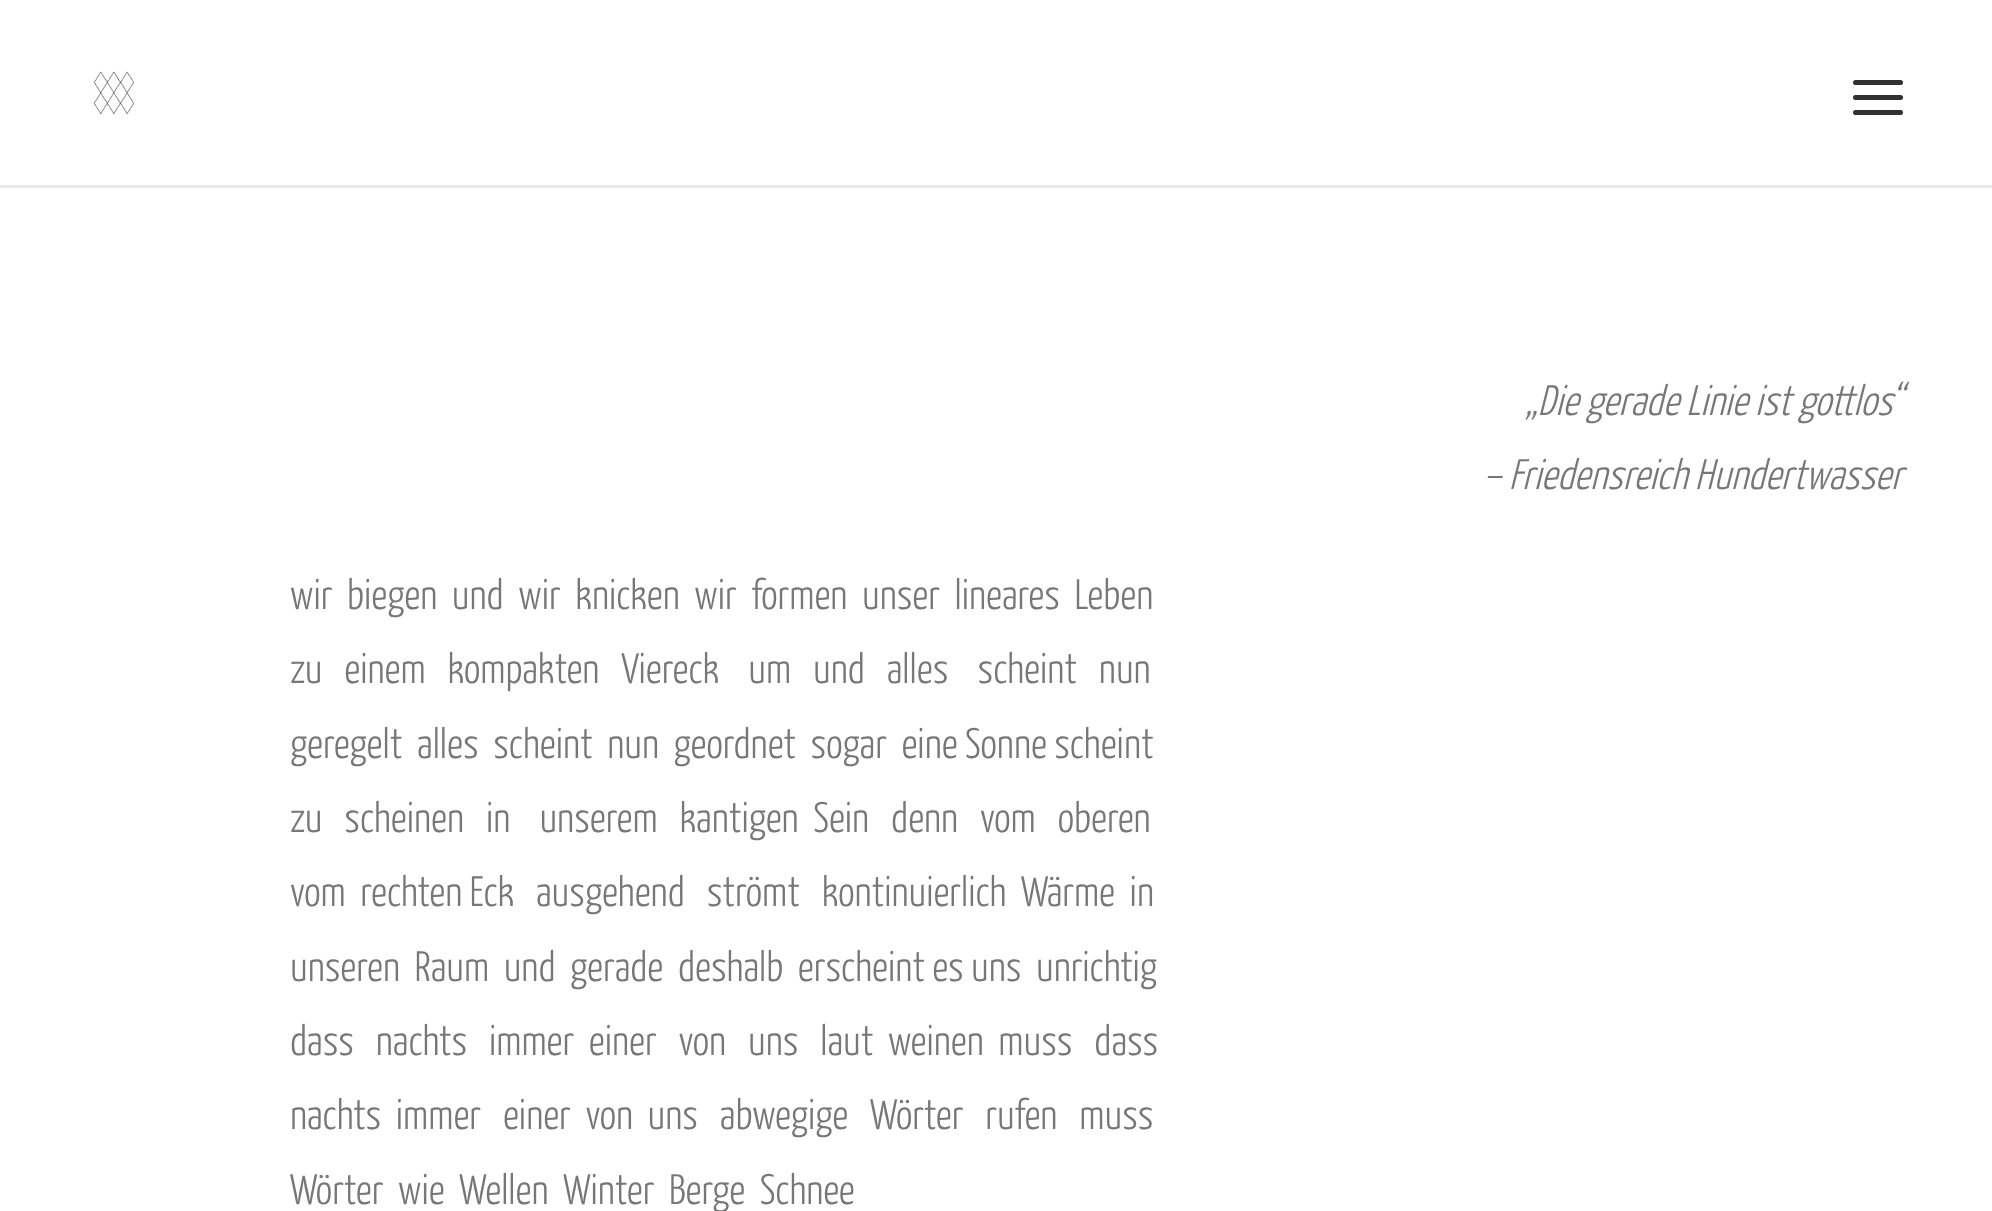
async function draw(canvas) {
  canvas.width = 1992;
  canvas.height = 1211;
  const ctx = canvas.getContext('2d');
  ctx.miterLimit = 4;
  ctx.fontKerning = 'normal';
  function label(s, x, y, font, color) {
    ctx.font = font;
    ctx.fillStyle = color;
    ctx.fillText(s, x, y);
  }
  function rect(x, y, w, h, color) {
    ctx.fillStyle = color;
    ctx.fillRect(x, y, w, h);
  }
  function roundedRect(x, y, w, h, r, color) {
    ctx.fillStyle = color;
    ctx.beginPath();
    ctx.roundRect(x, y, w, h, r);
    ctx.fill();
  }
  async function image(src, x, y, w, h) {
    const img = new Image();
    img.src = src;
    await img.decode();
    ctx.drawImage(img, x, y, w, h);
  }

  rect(0, 0, 1992, 1211, '#fff');
  rect(0, 185, 1992, 3, '#eaeaea');
  await image('assets/img1.png', 93, 71, 41, 44);
  roundedRect(1853, 95, 50, 5, 2.5, '#303133');
  roundedRect(1853, 80, 50, 5, 2.5, '#303133');
  roundedRect(1853, 110, 50, 5, 2.5, '#303133');
  label('„Die gerade Linie ist gottlos“', 1525, 415, 'italic 300 42.5px Yanone Kaffeesatz', '#777');
  label('– Friedensreich Hundertwasser', 1483, 489, 'italic 300 42.5px Yanone Kaffeesatz', '#777');
  label('wir  biegen  und  wir  knicken  wir  formen  unser  lineares  Leben', 290, 609, '300 42.5px Yanone Kaffeesatz', '#777');
  label('zu   einem   kompakten   Viereck    um   und   alles    scheint   nun', 290, 683, '300 42.5px Yanone Kaffeesatz', '#777');
  label('geregelt  alles  scheint  nun  geordnet  sogar  eine Sonne scheint', 290, 758, '300 42.5px Yanone Kaffeesatz', '#777');
  label('zu   scheinen   in    unserem   kantigen  Sein   denn   vom   oberen', 290, 832, '300 42.5px Yanone Kaffeesatz', '#777');
  label('vom  rechten Eck   ausgehend   strömt   kontinuierlich  Wärme  in', 290, 906, '300 42.5px Yanone Kaffeesatz', '#777');
  label('unseren  Raum  und  gerade  deshalb  erscheint es uns  unrichtig', 290, 981, '300 42.5px Yanone Kaffeesatz', '#777');
  label('dass   nachts   immer  einer   von   uns   laut  weinen  muss   dass', 290, 1055, '300 42.5px Yanone Kaffeesatz', '#777');
  label('nachts  immer   einer  von  uns   abwegige   Wörter   rufen   muss', 290, 1129, '300 42.5px Yanone Kaffeesatz', '#777');
  label('Wörter  wie  Wellen  Winter  Berge  Schnee', 290, 1204, '300 42.5px Yanone Kaffeesatz', '#777');
}

draw(document.querySelector('canvas'));
